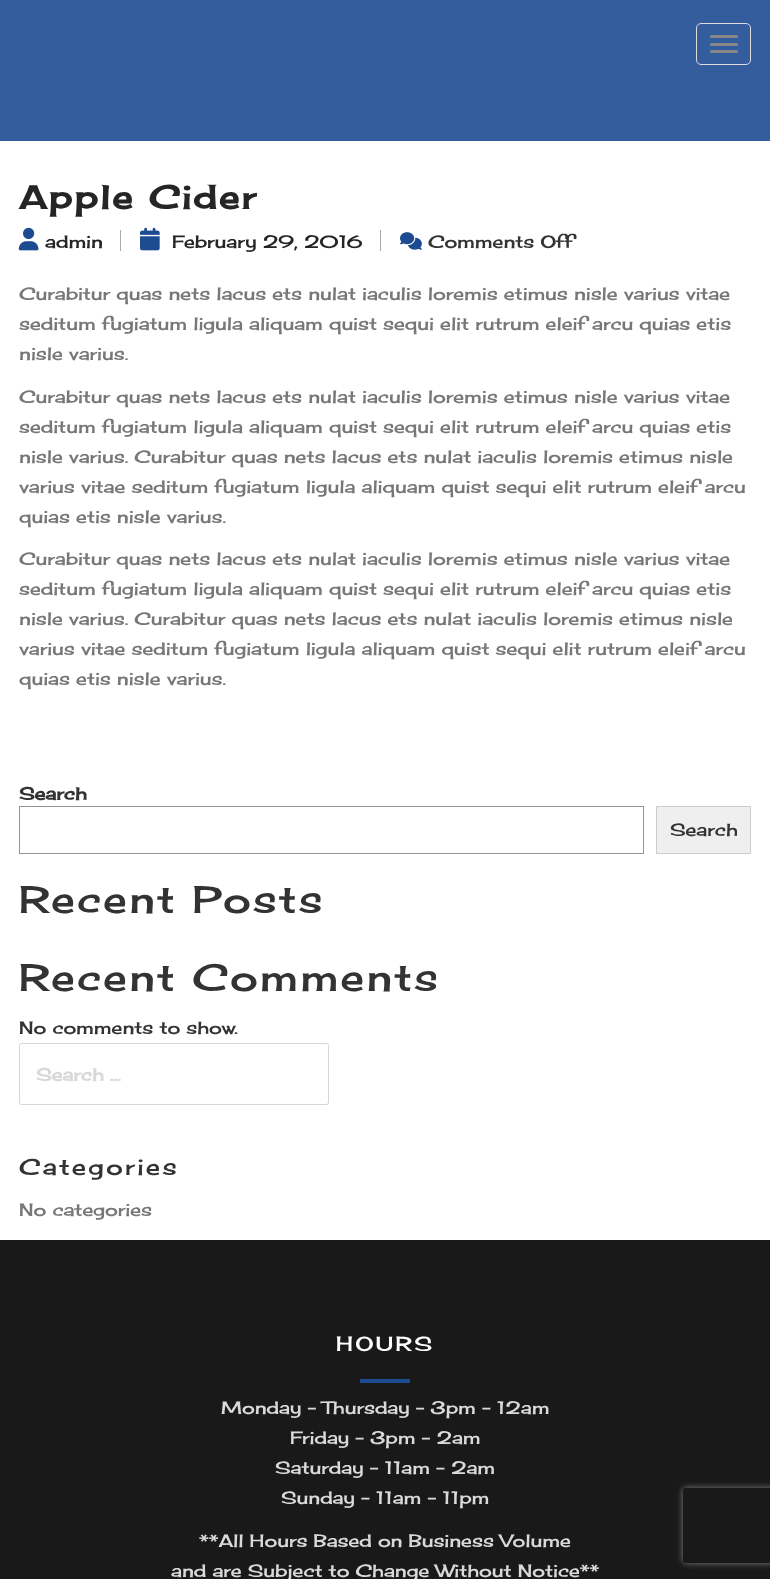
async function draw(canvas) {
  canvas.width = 770;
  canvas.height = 1579;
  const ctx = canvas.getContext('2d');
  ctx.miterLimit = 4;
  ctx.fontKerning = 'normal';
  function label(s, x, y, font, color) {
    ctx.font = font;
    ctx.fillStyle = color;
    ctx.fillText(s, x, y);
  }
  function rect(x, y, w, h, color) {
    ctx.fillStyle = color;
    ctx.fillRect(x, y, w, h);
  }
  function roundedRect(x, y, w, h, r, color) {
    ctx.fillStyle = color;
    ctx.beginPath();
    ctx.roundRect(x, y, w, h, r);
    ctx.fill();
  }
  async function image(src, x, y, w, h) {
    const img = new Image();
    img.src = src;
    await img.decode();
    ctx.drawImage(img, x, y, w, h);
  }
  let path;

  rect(0, 0, 770, 1579, '#fff');
  rect(0, 0, 770, 141, '#345d9d');
  ctx.beginPath();
  ctx.roundRect(696.5, 23.5, 54, 41, 4.5);
  ctx.strokeStyle = '#ddd';
  ctx.stroke();
  roundedRect(710, 35, 28, 3, 1.5, '#888');
  roundedRect(710, 43, 28, 3, 1.5, '#888');
  roundedRect(710, 50, 28, 3, 1.5, '#888');
  ctx.letterSpacing = '2.5px';
  label('Apple Cider', 19, 209, 'bold 32.5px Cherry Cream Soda', '#252525');
  rect(120, 230, 1, 21, '#aaa');
  await image('assets/img1.png', 18, 227, 21, 24);
  ctx.letterSpacing = '0px';
  label('admin', 45, 248, '17.5px Cherry Cream Soda', '#252525');
  rect(380, 230, 1, 21, '#aaa');
  await image('assets/img2.png', 140, 227, 20, 24);
  label('February 29, 2016', 172, 248, '17.5px Cherry Cream Soda', '#252525');
  await image('assets/img3.png', 400, 232, 22, 18);
  label('Comments Off', 428, 248, '17.5px Cherry Cream Soda', '#333');
  label('Curabitur quas nets lacus ets nulat iaculis loremis etimus nisle varius vitae', 19, 300, '17.5px Cherry Cream Soda', '#777');
  label('seditum fugiatum ligula aliquam quist sequi elit rutrum eleif arcu quias etis', 19, 330, '17.5px Cherry Cream Soda', '#777');
  label('nisle varius.', 19, 360, '17.5px Cherry Cream Soda', '#777');
  label('Curabitur quas nets lacus ets nulat iaculis loremis etimus nisle varius vitae', 19, 403, '17.5px Cherry Cream Soda', '#777');
  label('seditum fugiatum ligula aliquam quist sequi elit rutrum eleif arcu quias etis', 19, 433, '17.5px Cherry Cream Soda', '#777');
  label('nisle varius. Curabitur quas nets lacus ets nulat iaculis loremis etimus nisle', 19, 463, '17.5px Cherry Cream Soda', '#777');
  label('varius vitae seditum fugiatum ligula aliquam quist sequi elit rutrum eleif arcu', 19, 493, '17.5px Cherry Cream Soda', '#777');
  label('quias etis nisle varius.', 19, 523, '17.5px Cherry Cream Soda', '#777');
  label('Curabitur quas nets lacus ets nulat iaculis loremis etimus nisle varius vitae', 19, 565, '17.5px Cherry Cream Soda', '#777');
  label('seditum fugiatum ligula aliquam quist sequi elit rutrum eleif arcu quias etis', 19, 595, '17.5px Cherry Cream Soda', '#777');
  label('nisle varius. Curabitur quas nets lacus ets nulat iaculis loremis etimus nisle', 19, 625, '17.5px Cherry Cream Soda', '#777');
  label('varius vitae seditum fugiatum ligula aliquam quist sequi elit rutrum eleif arcu', 19, 655, '17.5px Cherry Cream Soda', '#777');
  label('quias etis nisle varius.', 19, 685, '17.5px Cherry Cream Soda', '#777');
  label('Search', 19, 800, 'bold 17.5px Cherry Cream Soda', '#333');
  ctx.strokeStyle = '#949494';
  ctx.strokeRect(19.5, 806.5, 624, 47);
  ctx.fillStyle = '#efefef';
  ctx.beginPath();
  ctx.rect(656.5, 806.5, 94, 47);
  ctx.fill();
  ctx.strokeStyle = '#ccc';
  ctx.stroke();
  label('Search', 670, 836, '17.5px Cherry Cream Soda', '#333');
  ctx.letterSpacing = '2.5px';
  label('Recent Posts', 19, 913, '37.5px Cherry Cream Soda', '#333');
  label('Recent Comments', 19, 991, '37.5px Cherry Cream Soda', '#333');
  ctx.letterSpacing = '0px';
  label('No comments to show.', 19, 1034, '17.5px Cherry Cream Soda', '#333');
  ctx.beginPath();
  ctx.roundRect(19.5, 1043.5, 309, 61, 2);
  ctx.strokeStyle = '#d5d5d5';
  ctx.stroke();
  label('Search …', 36, 1081, 'bold 17.5px Cherry Cream Soda', '#d9d9d9');
  ctx.letterSpacing = '2.5px';
  label('Categories', 19, 1175, '22.5px Cherry Cream Soda', '#333');
  ctx.letterSpacing = '0px';
  label('No categories', 19, 1216, '17.5px Cherry Cream Soda', '#777');
  rect(0, 1240, 770, 339, '#191919');
  ctx.letterSpacing = '2.5px';
  label('HOURS', 336, 1351, '20px Cherry Cream Soda', '#fff');
  rect(360, 1379, 50, 4, '#1d4b92');
  ctx.letterSpacing = '0px';
  label('Monday - Thursday - 3pm - 12am', 221, 1414, '17.5px Cherry Cream Soda', '#d9d9d9');
  label('Friday - 3pm - 2am', 290, 1444, '17.5px Cherry Cream Soda', '#d9d9d9');
  label('Saturday - 11am - 2am', 275, 1474, '17.5px Cherry Cream Soda', '#d9d9d9');
  label('Sunday - 11am - 11pm', 281, 1504, '17.5px Cherry Cream Soda', '#d9d9d9');
  label('**All Hours Based on Business Volume', 199, 1547, '17.5px Cherry Cream Soda', '#d9d9d9');
  label('and are Subject to Change Without Notice**', 171, 1577, '17.5px Cherry Cream Soda', '#d9d9d9');
  ctx.save();
  path = new Path2D('M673 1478H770V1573H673ZM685.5 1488H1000.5C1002 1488 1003 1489 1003 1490.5V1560.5C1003 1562 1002 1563 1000.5 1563H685.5C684 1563 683 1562 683 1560.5V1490.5C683 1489 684 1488 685.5 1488Z');
  ctx.clip(path, 'evenodd');
  ctx.fillStyle = '#808080';
  ctx.filter = 'blur(3px)';
  ctx.beginPath();
  ctx.roundRect(683, 1488, 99, 75, 2.5);
  ctx.fill();
  ctx.filter = 'none';
  ctx.restore();
}

draw(document.querySelector('canvas'));
